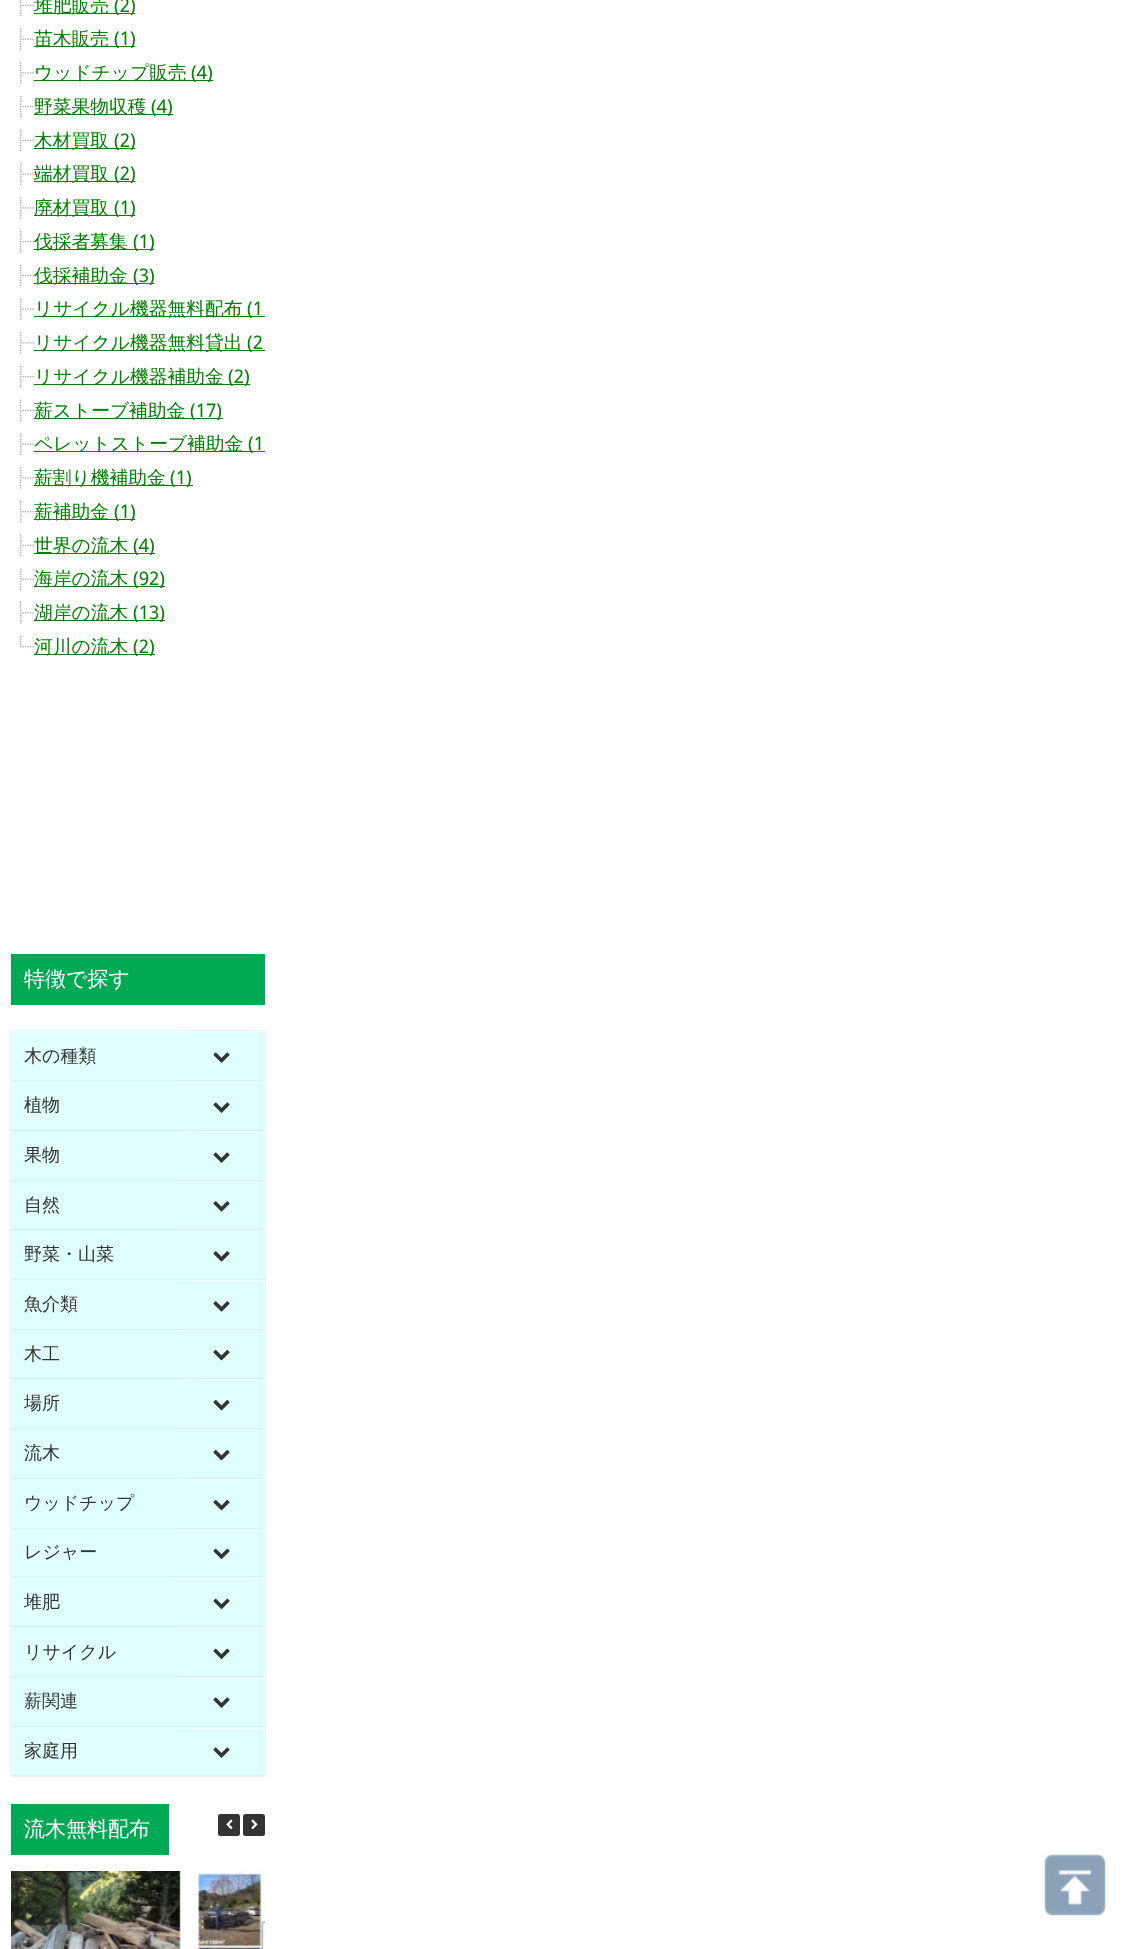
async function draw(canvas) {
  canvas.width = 1140;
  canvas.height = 1949;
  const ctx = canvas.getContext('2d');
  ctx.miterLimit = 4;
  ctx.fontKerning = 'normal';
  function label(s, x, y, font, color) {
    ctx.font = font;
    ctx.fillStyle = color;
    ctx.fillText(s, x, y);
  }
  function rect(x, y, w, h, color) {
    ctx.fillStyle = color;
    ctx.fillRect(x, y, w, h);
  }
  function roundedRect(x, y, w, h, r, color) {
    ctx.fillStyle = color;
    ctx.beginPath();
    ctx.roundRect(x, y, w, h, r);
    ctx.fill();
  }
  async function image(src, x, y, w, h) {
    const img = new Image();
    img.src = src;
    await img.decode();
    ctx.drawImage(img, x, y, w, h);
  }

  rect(0, 0, 1140, 1949, '#fff');
  await image('assets/img1.png', 19, 0, 15, 17);
  rect(34, 13, 101, 1, '#008000');
  label('堆肥販売', 34, 12, '500 18.75px WenQuanYi Zen Hei', '#008000');
  label('(2)', 114, 12, '18.75px Droid Sans', '#008000');
  await image('assets/img2.png', 19, 28, 15, 22);
  rect(34, 46, 101, 1, '#008000');
  label('苗木販売', 34, 45, '500 18.75px WenQuanYi Zen Hei', '#008000');
  label('(1)', 114, 45, '18.75px Droid Sans', '#008000');
  await image('assets/img3.png', 19, 62, 15, 22);
  rect(34, 80, 179, 1, '#008000');
  label('ウッドチップ販売', 34, 79, '500 18.75px WenQuanYi Zen Hei', '#008000');
  label('(4)', 191, 79, '18.75px Droid Sans', '#008000');
  await image('assets/img4.png', 19, 96, 15, 22);
  rect(34, 114, 139, 1, '#008000');
  label('野菜果物収穫', 34, 113, '500 18.75px WenQuanYi Zen Hei', '#008000');
  label('(4)', 151, 113, '18.75px Droid Sans', '#008000');
  await image('assets/img5.png', 19, 129, 15, 23);
  rect(34, 148, 101, 1, '#008000');
  label('木材買取', 34, 147, '500 18.75px WenQuanYi Zen Hei', '#008000');
  label('(2)', 114, 147, '18.75px Droid Sans', '#008000');
  await image('assets/img2.png', 19, 163, 15, 22);
  rect(34, 181, 101, 1, '#008000');
  label('端材買取', 34, 180, '500 18.75px WenQuanYi Zen Hei', '#008000');
  label('(2)', 114, 180, '18.75px Droid Sans', '#008000');
  await image('assets/img3.png', 19, 197, 15, 22);
  rect(34, 215, 101, 1, '#008000');
  label('廃材買取', 34, 214, '500 18.75px WenQuanYi Zen Hei', '#008000');
  label('(1)', 114, 214, '18.75px Droid Sans', '#008000');
  await image('assets/img4.png', 19, 231, 15, 22);
  rect(34, 249, 120, 1, '#008000');
  label('伐採者募集', 34, 248, '500 18.75px WenQuanYi Zen Hei', '#008000');
  label('(1)', 133, 248, '18.75px Droid Sans', '#008000');
  await image('assets/img5.png', 19, 264, 15, 23);
  rect(34, 283, 120, 1, '#008000');
  label('伐採補助金', 34, 282, '500 18.75px WenQuanYi Zen Hei', '#008000');
  label('(3)', 133, 282, '18.75px Droid Sans', '#008000');
  await image('assets/img2.png', 19, 298, 15, 22);
  rect(34, 316, 231, 1, '#008000');
  label('リサイクル機器無料配布', 34, 315, '500 18.75px WenQuanYi Zen Hei', '#008000');
  label('(1', 247, 315, '18.75px Droid Sans', '#008000');
  await image('assets/img3.png', 19, 332, 15, 22);
  rect(34, 350, 231, 1, '#008000');
  label('リサイクル機器無料貸出', 34, 349, '500 18.75px WenQuanYi Zen Hei', '#008000');
  label('(2', 247, 349, '18.75px Droid Sans', '#008000');
  await image('assets/img4.png', 19, 366, 15, 22);
  rect(34, 384, 216, 1, '#008000');
  label('リサイクル機器補助金', 34, 383, '500 18.75px WenQuanYi Zen Hei', '#008000');
  label('(2)', 228, 383, '18.75px Droid Sans', '#008000');
  await image('assets/img5.png', 19, 399, 15, 23);
  rect(34, 418, 189, 1, '#008000');
  label('薪ストーブ補助金', 34, 417, '500 18.75px WenQuanYi Zen Hei', '#008000');
  label('(17)', 190, 417, '18.75px Droid Sans', '#008000');
  await image('assets/img2.png', 19, 433, 15, 22);
  rect(34, 451, 231, 1, '#008000');
  label('ペレットストーブ補助金', 34, 450, '500 18.75px WenQuanYi Zen Hei', '#008000');
  label('(1', 248, 450, '18.75px Droid Sans', '#008000');
  await image('assets/img3.png', 19, 467, 15, 22);
  rect(34, 485, 159, 1, '#008000');
  label('薪割り機補助金', 34, 484, '500 18.75px WenQuanYi Zen Hei', '#008000');
  label('(1)', 170, 484, '18.75px Droid Sans', '#008000');
  await image('assets/img4.png', 19, 501, 15, 22);
  rect(34, 519, 101, 1, '#008000');
  label('薪補助金', 34, 518, '500 18.75px WenQuanYi Zen Hei', '#008000');
  label('(1)', 114, 518, '18.75px Droid Sans', '#008000');
  await image('assets/img5.png', 19, 534, 15, 23);
  rect(34, 553, 121, 1, '#008000');
  label('世界の流木', 34, 552, '500 18.75px WenQuanYi Zen Hei', '#008000');
  label('(4)', 133, 552, '18.75px Droid Sans', '#008000');
  await image('assets/img2.png', 19, 568, 15, 22);
  rect(34, 586, 131, 1, '#008000');
  label('海岸の流木', 34, 585, '500 18.75px WenQuanYi Zen Hei', '#008000');
  label('(92)', 133, 585, '18.75px Droid Sans', '#008000');
  await image('assets/img3.png', 19, 602, 15, 22);
  rect(34, 620, 131, 1, '#008000');
  label('湖岸の流木', 34, 619, '500 18.75px WenQuanYi Zen Hei', '#008000');
  label('(13)', 133, 619, '18.75px Droid Sans', '#008000');
  await image('assets/img6.png', 19, 636, 15, 12);
  rect(34, 654, 121, 1, '#008000');
  label('河川の流木', 34, 653, '500 18.75px WenQuanYi Zen Hei', '#008000');
  label('(2)', 133, 653, '18.75px Droid Sans', '#008000');
  rect(11, 954, 254, 51, '#0a5');
  label('特徴で探す', 24, 986, '500 21px WenQuanYi Zen Hei', '#fff');
  ctx.fillStyle = '#0000002b';
  ctx.filter = 'blur(1px)';
  ctx.beginPath();
  ctx.rect(11, 1031, 254, 745);
  ctx.fill();
  ctx.filter = 'none';
  rect(11, 1031, 254, 49, '#e0ffff');
  rect(11, 1080, 254, 1, '#d5f2f2');
  label('木の種類', 24, 1062, '500 18px WenQuanYi Zen Hei', '#333');
  rect(178, 1031, 87, 1, '#f0ffff');
  await image('assets/img7.png', 213, 1052, 17, 11);
  rect(11, 1081, 254, 49, '#e0ffff');
  rect(11, 1130, 254, 1, '#d5f2f2');
  label('植物', 24, 1111, '500 18px WenQuanYi Zen Hei', '#333');
  rect(178, 1081, 87, 1, '#f0ffff');
  await image('assets/img7.png', 213, 1102, 17, 11);
  rect(11, 1131, 254, 49, '#e0ffff');
  rect(11, 1180, 254, 1, '#d5f2f2');
  label('果物', 24, 1161, '500 18px WenQuanYi Zen Hei', '#333');
  rect(178, 1131, 87, 1, '#f0ffff');
  await image('assets/img7.png', 213, 1152, 17, 11);
  rect(11, 1181, 254, 48, '#e0ffff');
  rect(11, 1229, 254, 1, '#d5f2f2');
  label('自然', 24, 1211, '500 18px WenQuanYi Zen Hei', '#333');
  rect(178, 1181, 87, 1, '#f0ffff');
  await image('assets/img8.png', 213, 1201, 17, 11);
  rect(11, 1230, 254, 49, '#e0ffff');
  rect(11, 1279, 254, 1, '#d5f2f2');
  label('野菜・山菜', 24, 1260, '500 18px WenQuanYi Zen Hei', '#333');
  rect(178, 1230, 87, 1, '#f0ffff');
  await image('assets/img8.png', 213, 1251, 17, 11);
  rect(11, 1280, 254, 49, '#e0ffff');
  rect(11, 1329, 254, 1, '#d5f2f2');
  label('魚介類', 24, 1310, '500 18px WenQuanYi Zen Hei', '#333');
  rect(178, 1280, 87, 1, '#f0ffff');
  await image('assets/img8.png', 213, 1301, 17, 11);
  rect(11, 1330, 254, 48, '#e0ffff');
  rect(11, 1378, 254, 1, '#d5f2f2');
  label('木工', 24, 1360, '500 18px WenQuanYi Zen Hei', '#333');
  rect(178, 1330, 87, 1, '#f0ffff');
  await image('assets/img9.png', 213, 1350, 17, 11);
  rect(11, 1379, 254, 49, '#e0ffff');
  rect(11, 1428, 254, 1, '#d5f2f2');
  label('場所', 24, 1409, '500 18px WenQuanYi Zen Hei', '#333');
  rect(178, 1379, 87, 1, '#f0ffff');
  await image('assets/img9.png', 213, 1400, 17, 11);
  rect(11, 1429, 254, 49, '#e0ffff');
  rect(11, 1478, 254, 1, '#d5f2f2');
  label('流木', 24, 1459, '500 18px WenQuanYi Zen Hei', '#333');
  rect(178, 1429, 87, 1, '#f0ffff');
  await image('assets/img9.png', 213, 1450, 17, 11);
  rect(11, 1479, 254, 49, '#e0ffff');
  rect(11, 1528, 254, 1, '#d5f2f2');
  label('ウッドチップ', 24, 1509, '500 18px WenQuanYi Zen Hei', '#333');
  rect(178, 1479, 87, 1, '#f0ffff');
  await image('assets/img9.png', 213, 1500, 17, 11);
  rect(11, 1529, 254, 246, '#e0ffff');
  rect(11, 1576, 254, 1, '#d5f2f2');
  label('レジャー', 24, 1558, '500 18px WenQuanYi Zen Hei', '#333');
  rect(178, 1529, 87, 1, '#f0ffff');
  await image('assets/img10.png', 213, 1548, 17, 11);
  rect(11, 1626, 254, 1, '#d5f2f2');
  label('堆肥', 24, 1608, '500 18px WenQuanYi Zen Hei', '#333');
  rect(178, 1578, 87, 1, '#f0ffff');
  await image('assets/img10.png', 213, 1598, 17, 11);
  rect(11, 1676, 254, 1, '#d5f2f2');
  label('リサイクル', 24, 1658, '500 18px WenQuanYi Zen Hei', '#333');
  rect(178, 1628, 87, 1, '#f0ffff');
  await image('assets/img10.png', 213, 1648, 17, 11);
  rect(11, 1726, 254, 1, '#d5f2f2');
  label('薪関連', 24, 1707, '500 18px WenQuanYi Zen Hei', '#333');
  rect(178, 1678, 87, 1, '#f0ffff');
  await image('assets/img7.png', 213, 1697, 17, 11);
  rect(11, 1775, 254, 1, '#d5f2f2');
  label('家庭用', 24, 1757, '500 18px WenQuanYi Zen Hei', '#333');
  rect(178, 1728, 87, 1, '#f0ffff');
  await image('assets/img7.png', 213, 1747, 17, 11);
  rect(11, 1804, 158, 51, '#0a5');
  label('流木無料配布', 24, 1836, '500 21px WenQuanYi Zen Hei', '#fff');
  roundedRect(218, 1814, 22, 22, 2.5, '#333');
  await image('assets/img11.png', 226, 1819, 7, 11);
  roundedRect(243, 1814, 22, 22, 2.5, '#333');
  await image('assets/img12.png', 251, 1819, 7, 11);
  await image('assets/img13.png', 11, 1871, 170, 78);
  await image('assets/img14.png', 198, 1871, 67, 78);
  await image('assets/img15.png', 1043, 1853, 64, 64);
}

draw(document.querySelector('canvas'));
